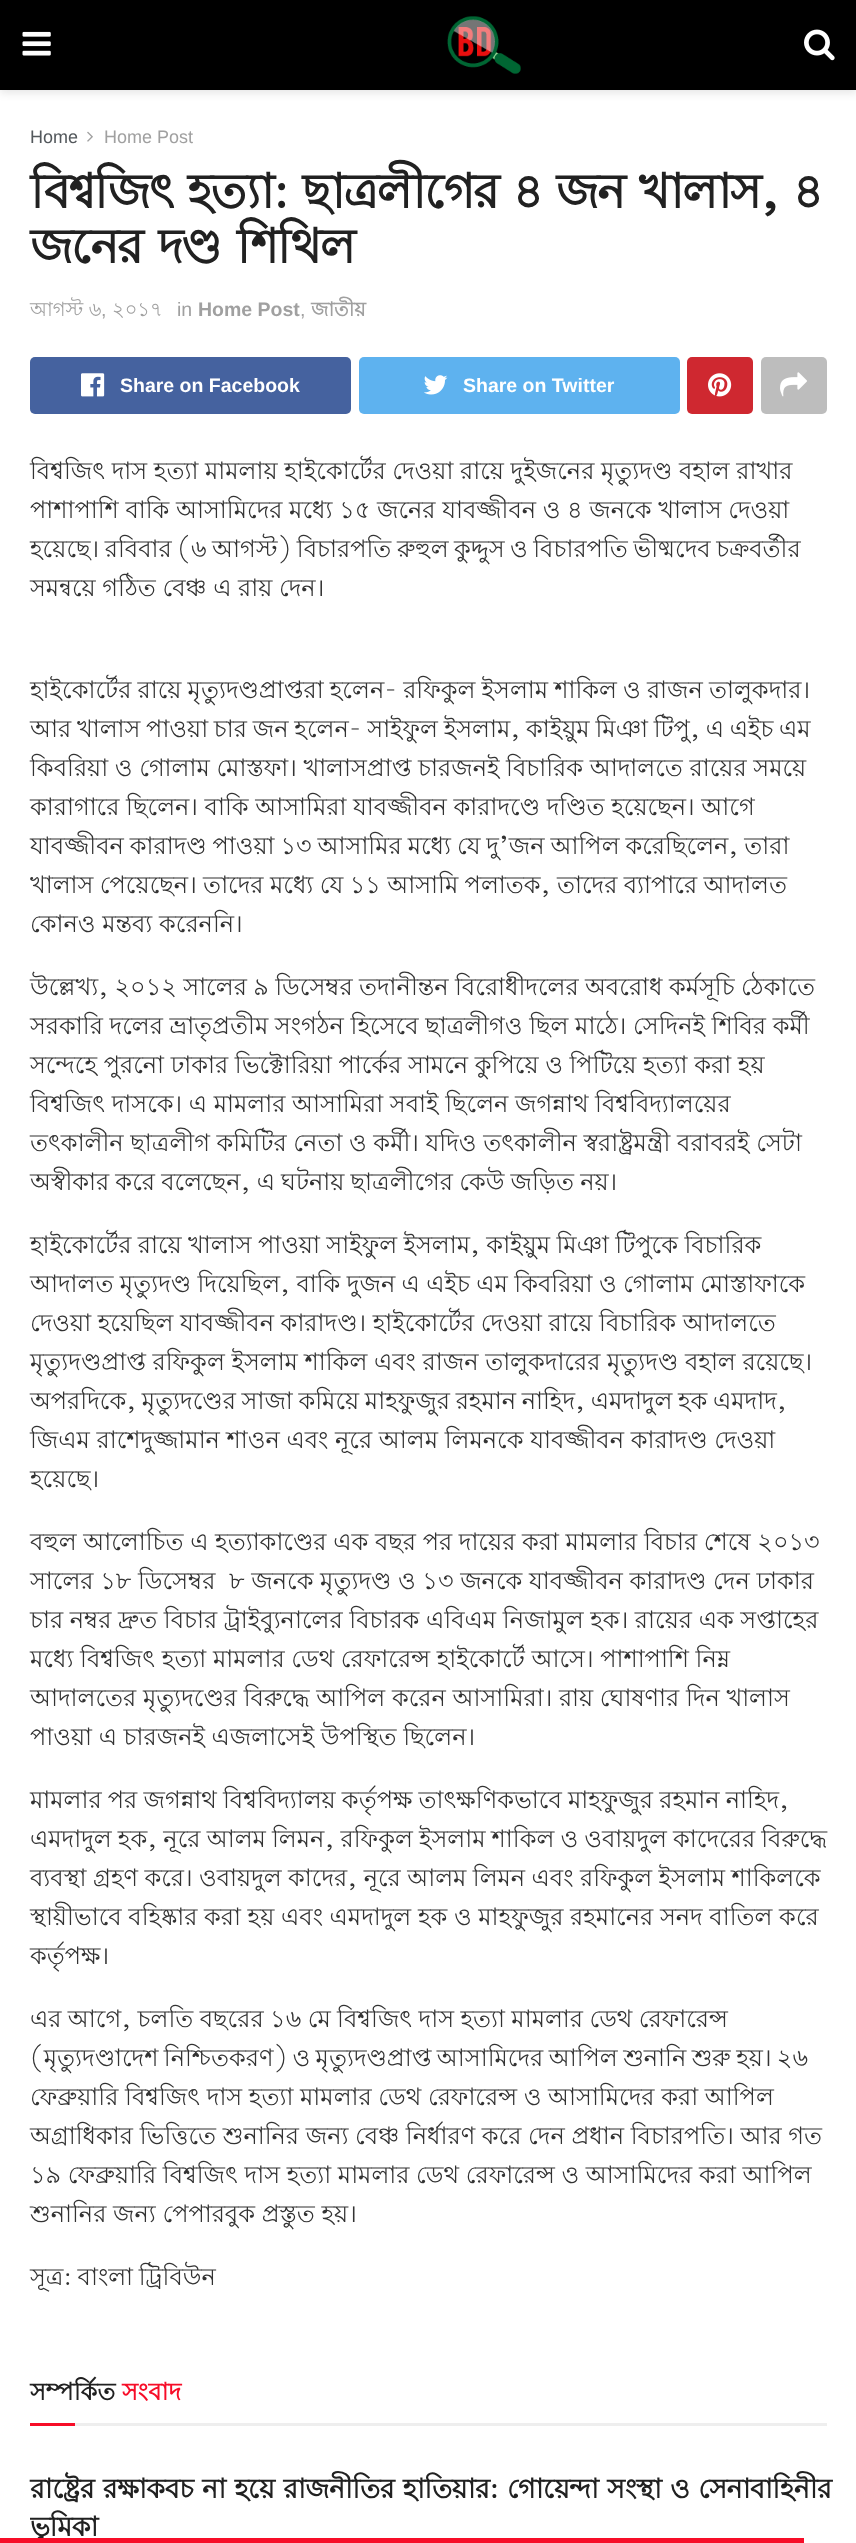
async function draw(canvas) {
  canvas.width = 856;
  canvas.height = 2543;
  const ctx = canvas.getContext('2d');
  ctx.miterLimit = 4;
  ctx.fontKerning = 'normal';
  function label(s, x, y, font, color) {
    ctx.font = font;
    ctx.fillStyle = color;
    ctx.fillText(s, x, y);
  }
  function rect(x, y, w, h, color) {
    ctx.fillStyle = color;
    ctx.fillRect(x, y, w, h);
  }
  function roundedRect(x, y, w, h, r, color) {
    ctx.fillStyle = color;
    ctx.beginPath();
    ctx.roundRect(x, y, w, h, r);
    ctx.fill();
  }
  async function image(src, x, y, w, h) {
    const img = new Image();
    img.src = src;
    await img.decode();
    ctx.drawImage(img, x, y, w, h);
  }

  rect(0, 0, 856, 2543, '#fff');
  ctx.fillStyle = '#0000001a';
  ctx.filter = 'blur(4.5px)';
  ctx.beginPath();
  ctx.rect(0, 3, 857, 90);
  ctx.fill();
  ctx.filter = 'none';
  rect(0, 0, 856, 90, '#000');
  await image('assets/img1.png', 22, 31, 29, 25);
  await image('assets/img2.png', 447, 16, 74, 58);
  await image('assets/img3.png', 804, 29, 31, 32);
  label('Home', 30, 143, '18px Liberation Sans', '#53585c');
  await image('assets/img4.png', 87, 131, 6, 11);
  label('Home Post', 104, 143, '18px Liberation Sans', '#a0a0a0');
  ctx.letterSpacing = '-1.9px';
  ctx.wordSpacing = '3.25px';
  label('বিশ্বজিৎ হত্যা: ছাত্রলীগের ৪ জন খালাস, ৪', 30, 208, 'bold 48px Lohit Bengali', '#212121');
  ctx.wordSpacing = '5px';
  label('জনের দণ্ড শিথিল', 30, 263, 'bold 48px Lohit Bengali', '#212121');
  ctx.letterSpacing = '0px';
  ctx.wordSpacing = '0px';
  label('আগস্ট ৬', 30, 316, '19.5px Lohit Bengali', '#a0a0a0');
  label(',', 101, 316, '19.5px Liberation Sans', '#a0a0a0');
  label('২০১৭', 112, 316, '19.5px Lohit Bengali', '#a0a0a0');
  label('in', 177, 316, '19.5px Liberation Sans', '#a0a0a0');
  label('Home Post', 198, 316, 'bold 19.5px Liberation Sans', '#a0a0a0');
  label(',', 300, 316, '19.5px Liberation Sans', '#a0a0a0');
  label('জাতীয়', 311, 316, 'bold 19.5px Lohit Bengali', '#a0a0a0');
  roundedRect(30, 357, 321, 57, 5, '#45629f');
  await image('assets/img5.png', 81, 373, 24, 24);
  label('Share on Facebook', 120, 392, 'bold 19.5px Liberation Sans', '#fff');
  roundedRect(359, 357, 321, 57, 5, '#5eb2ef');
  await image('assets/img6.png', 424, 375, 24, 20);
  label('Share on Twitter', 463, 392, 'bold 19.5px Liberation Sans', '#fff');
  roundedRect(687, 357, 66, 57, 5, '#cf2830');
  await image('assets/img7.png', 708, 373, 24, 24);
  roundedRect(761, 357, 66, 57, 5, '#bdbdbd');
  await image('assets/img8.png', 780, 372, 27, 25);
  label('বিশ্বজিৎ দাস হত্যা মামলায় হাইকোর্টের দেওয়া রায়ে দুইজনের মৃত্যুদণ্ড বহাল রাখার', 30, 479, '24px Lohit Bengali', '#333');
  label('পাশাপাশি বাকি আসামিদের মধ্যে ১৫ জনের যাবজ্জীবন ও ৪ জনকে খালাস দেওয়া', 30, 518, '24px Lohit Bengali', '#333');
  ctx.wordSpacing = '-1.1px';
  label('হয়েছে। রবিবার (৬ আগস্ট) বিচারপতি রুহুল কুদ্দুস ও বিচারপতি ভীষ্মদেব চক্রবর্তীর', 30, 557, '24px Lohit Bengali', '#333');
  ctx.wordSpacing = '0px';
  label('সমন্বয়ে গঠিত বেঞ্চ এ রায় দেন।', 30, 596, '24px Lohit Bengali', '#333');
  ctx.wordSpacing = '-0.5px';
  label('হাইকোর্টের রায়ে মৃত্যুদণ্ডপ্রাপ্তরা হলেন- রফিকুল ইসলাম শাকিল ও রাজন তালুকদার।', 30, 698, '24px Lohit Bengali', '#333');
  ctx.wordSpacing = '-0.9px';
  label('আর খালাস পাওয়া চার জন হলেন- সাইফুল ইসলাম, কাইয়ুম মিঞা টিপু, এ এইচ এম', 30, 737, '24px Lohit Bengali', '#333');
  ctx.wordSpacing = '0px';
  label('কিবরিয়া ও গোলাম মোস্তফা। খালাসপ্রাপ্ত চারজনই বিচারিক আদালতে রায়ের সময়ে', 30, 776, '24px Lohit Bengali', '#333');
  label('কারাগারে ছিলেন। বাকি আসামিরা যাবজ্জীবন কারাদণ্ডে দণ্ডিত হয়েছেন। আগে', 30, 815, '24px Lohit Bengali', '#333');
  ctx.wordSpacing = '-0.75px';
  label('যাবজ্জীবন কারাদণ্ড পাওয়া ১৩ আসামির মধ্যে যে দু’জন আপিল করেছিলেন, তারা', 30, 854, '24px Lohit Bengali', '#333');
  ctx.wordSpacing = '-0.25px';
  label('খালাস পেয়েছেন। তাদের মধ্যে যে ১১ আসামি পলাতক, তাদের ব্যাপারে আদালত', 30, 893, '24px Lohit Bengali', '#333');
  ctx.wordSpacing = '0px';
  label('কোনও মন্তব্য করেননি।', 30, 932, '24px Lohit Bengali', '#333');
  ctx.wordSpacing = '-0.25px';
  label('উল্লেখ্য, ২০১২ সালের ৯ ডিসেম্বর তদানীন্তন বিরোধীদলের অবরোধ কর্মসূচি ঠেকাতে', 30, 995, '24px Lohit Bengali', '#333');
  ctx.wordSpacing = '0px';
  label('সরকারি দলের ভ্রাতৃপ্রতীম সংগঠন হিসেবে ছাত্রলীগও ছিল মাঠে। সেদিনই শিবির কর্মী', 30, 1034, '24px Lohit Bengali', '#333');
  label('সন্দেহে পুরনো ঢাকার ভিক্টোরিয়া পার্কের সামনে কুপিয়ে ও পিটিয়ে হত্যা করা হয়', 30, 1073, '24px Lohit Bengali', '#333');
  label('বিশ্বজিৎ দাসকে। এ মামলার আসামিরা সবাই ছিলেন জগন্নাথ বিশ্ববিদ্যালয়ের', 30, 1112, '24px Lohit Bengali', '#333');
  label('তৎকালীন ছাত্রলীগ কমিটির নেতা ও কর্মী। যদিও তৎকালীন স্বরাষ্ট্রমন্ত্রী বরাবরই সেটা', 30, 1151, '24px Lohit Bengali', '#333');
  ctx.wordSpacing = '-0.5px';
  label('অস্বীকার করে বলেছেন, এ ঘটনায় ছাত্রলীগের কেউ জড়িত নয়।', 30, 1190, '24px Lohit Bengali', '#333');
  ctx.wordSpacing = '-0.25px';
  label('হাইকোর্টের রায়ে খালাস পাওয়া সাইফুল ইসলাম, কাইয়ুম মিঞা টিপুকে বিচারিক', 30, 1253, '24px Lohit Bengali', '#333');
  label('আদালত মৃত্যুদণ্ড দিয়েছিল, বাকি দুজন এ এইচ এম কিবরিয়া ও গোলাম মোস্তাফাকে', 30, 1292, '24px Lohit Bengali', '#333');
  ctx.wordSpacing = '0px';
  label('দেওয়া হয়েছিল যাবজ্জীবন কারাদণ্ড। হাইকোর্টের দেওয়া রায়ে বিচারিক আদালতে', 30, 1331, '24px Lohit Bengali', '#333');
  label('মৃত্যুদণ্ডপ্রাপ্ত রফিকুল ইসলাম শাকিল এবং রাজন তালুকদারের মৃত্যুদণ্ড বহাল রয়েছে।', 30, 1370, '24px Lohit Bengali', '#333');
  ctx.wordSpacing = '-1px';
  label('অপরদিকে, মৃত্যুদণ্ডের সাজা কমিয়ে মাহফুজুর রহমান নাহিদ, এমদাদুল হক এমদাদ,', 30, 1409, '24px Lohit Bengali', '#333');
  ctx.wordSpacing = '0px';
  label('জিএম রাশেদুজ্জামান শাওন এবং নূরে আলম লিমনকে যাবজ্জীবন কারাদণ্ড দেওয়া', 30, 1448, '24px Lohit Bengali', '#333');
  label('হয়েছে।', 30, 1487, '24px Lohit Bengali', '#333');
  label('বহুল আলোচিত এ হত্যাকাণ্ডের এক বছর পর দায়ের করা মামলার বিচার শেষে ২০১৩', 30, 1550, '24px Lohit Bengali', '#333');
  label('সালের ১৮ ডিসেম্বর', 30, 1589, '24px Lohit Bengali', '#333');
  label('৮ জনকে মৃত্যুদণ্ড ও ১৩ জনকে যাবজ্জীবন কারাদণ্ড দেন ঢাকার', 229, 1589, '24px Lohit Bengali', '#333');
  label('চার নম্বর দ্রুত বিচার ট্রাইব্যুনালের বিচারক এবিএম নিজামুল হক। রায়ের এক সপ্তাহের', 30, 1628, '24px Lohit Bengali', '#333');
  label('মধ্যে বিশ্বজিৎ হত্যা মামলার ডেথ রেফারেন্স হাইকোর্টে আসে। পাশাপাশি নিম্ন', 30, 1667, '24px Lohit Bengali', '#333');
  label('আদালতের মৃত্যুদণ্ডের বিরুদ্ধে আপিল করেন আসামিরা। রায় ঘোষণার দিন খালাস', 30, 1706, '24px Lohit Bengali', '#333');
  label('পাওয়া এ চারজনই এজলাসেই উপস্থিত ছিলেন।', 30, 1745, '24px Lohit Bengali', '#333');
  ctx.wordSpacing = '-0.5px';
  label('মামলার পর জগন্নাথ বিশ্ববিদ্যালয় কর্তৃপক্ষ তাৎক্ষণিকভাবে মাহফুজুর রহমান নাহিদ,', 30, 1808, '24px Lohit Bengali', '#333');
  label('এমদাদুল হক, নূরে আলম লিমন, রফিকুল ইসলাম শাকিল ও ওবায়দুল কাদেরের বিরুদ্ধে', 30, 1847, '24px Lohit Bengali', '#333');
  ctx.wordSpacing = '-0.25px';
  label('ব্যবস্থা গ্রহণ করে। ওবায়দুল কাদের, নূরে আলম লিমন এবং রফিকুল ইসলাম শাকিলকে', 30, 1886, '24px Lohit Bengali', '#333');
  ctx.wordSpacing = '0px';
  label('স্থায়ীভাবে বহিষ্কার করা হয় এবং এমদাদুল হক ও মাহফুজুর রহমানের সনদ বাতিল করে', 30, 1925, '24px Lohit Bengali', '#333');
  label('কর্তৃপক্ষ।', 30, 1964, '24px Lohit Bengali', '#333');
  ctx.wordSpacing = '-0.25px';
  label('এর আগে, চলতি বছরের ১৬ মে বিশ্বজিৎ দাস হত্যা মামলার ডেথ রেফারেন্স', 30, 2027, '24px Lohit Bengali', '#333');
  ctx.wordSpacing = '-1.25px';
  label('(মৃত্যুদণ্ডাদেশ নিশ্চিতকরণ) ও মৃত্যুদণ্ডপ্রাপ্ত আসামিদের আপিল শুনানি শুরু হয়। ২৬', 30, 2066, '24px Lohit Bengali', '#333');
  ctx.wordSpacing = '0px';
  label('ফেব্রুয়ারি বিশ্বজিৎ দাস হত্যা মামলার ডেথ রেফারেন্স ও আসামিদের করা আপিল', 30, 2105, '24px Lohit Bengali', '#333');
  label('অগ্রাধিকার ভিত্তিতে শুনানির জন্য বেঞ্চ নির্ধারণ করে দেন প্রধান বিচারপতি। আর গত', 30, 2144, '24px Lohit Bengali', '#333');
  label('১৯ ফেব্রুয়ারি বিশ্বজিৎ দাস হত্যা মামলার ডেথ রেফারেন্স ও আসামিদের করা আপিল', 30, 2183, '24px Lohit Bengali', '#333');
  label('শুনানির জন্য পেপারবুক প্রস্তুত হয়।', 30, 2222, '24px Lohit Bengali', '#333');
  ctx.wordSpacing = '-1px';
  label('সূত্র: বাংলা ট্রিবিউন', 30, 2285, '24px Lohit Bengali', '#333');
  rect(75, 2423, 752, 3, '#eee');
  ctx.wordSpacing = '0px';
  label('সম্পর্কিত', 30, 2400, 'bold 24px Lohit Bengali', '#212121');
  label('সংবাদ', 122, 2400, 'bold 24px Lohit Bengali', '#f70d28');
  rect(30, 2423, 45, 3, '#f70d28');
  ctx.letterSpacing = '-0.55px';
  ctx.wordSpacing = '2px';
  label('রাষ্ট্রের রক্ষাকবচ না হয়ে রাজনীতির হাতিয়ার: গোয়েন্দা সংস্থা ও সেনাবাহিনীর', 30, 2498, 'bold 27px Lohit Bengali', '#212121');
  ctx.save();
  ctx.beginPath();
  ctx.rect(30, 2456, 797, 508);
  ctx.clip();
  ctx.wordSpacing = '0px';
  label('ভূমিকা', 30, 2536, 'bold 27px Lohit Bengali', '#212121');
  ctx.restore();
  rect(0, 2538, 804, 5, '#f70d28');
}

draw(document.querySelector('canvas'));
